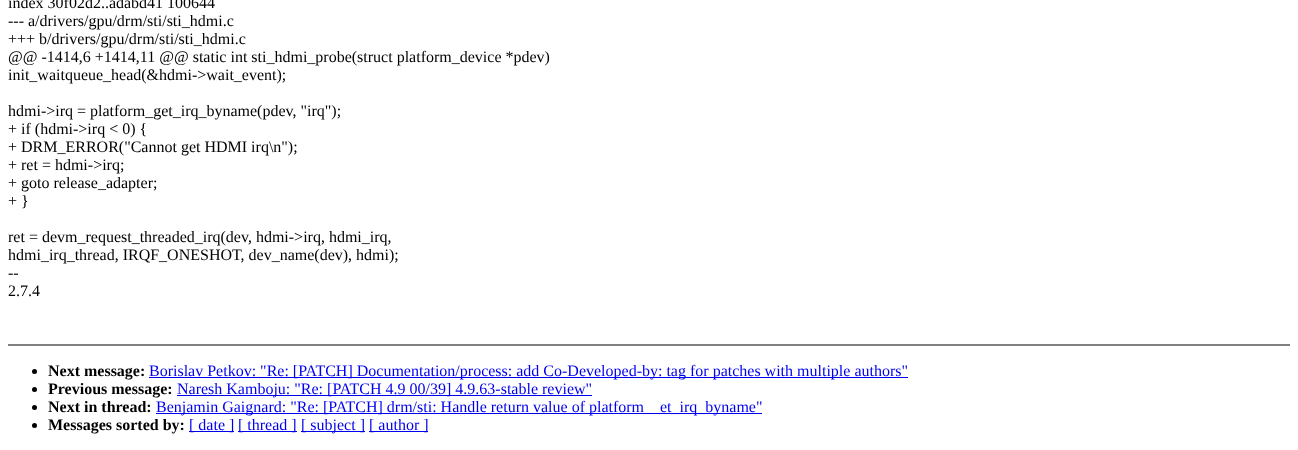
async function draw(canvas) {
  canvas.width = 1298;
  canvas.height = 450;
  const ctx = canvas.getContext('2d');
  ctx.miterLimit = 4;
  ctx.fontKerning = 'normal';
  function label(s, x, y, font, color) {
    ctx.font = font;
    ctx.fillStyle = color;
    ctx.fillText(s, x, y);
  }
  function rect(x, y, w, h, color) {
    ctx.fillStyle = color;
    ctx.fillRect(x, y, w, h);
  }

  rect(0, 0, 1298, 450, '#fff');
  label('index 30f02d2..adabd41 100644', 8, 8, '16px Liberation Serif', '#000');
  label('--- a/drivers/gpu/drm/sti/sti_hdmi.c', 8, 26, '16px Liberation Serif', '#000');
  label('+++ b/drivers/gpu/drm/sti/sti_hdmi.c', 8, 44, '16px Liberation Serif', '#000');
  label('@@ -1414,6 +1414,11 @@ static int sti_hdmi_probe(struct platform_device *pdev)', 8, 62, '16px Liberation Serif', '#000');
  label('init_waitqueue_head(&hdmi->wait_event);', 8, 80, '16px Liberation Serif', '#000');
  label('hdmi->irq = platform_get_irq_byname(pdev, "irq");', 8, 116, '16px Liberation Serif', '#000');
  label('+ if (hdmi->irq < 0) {', 8, 134, '16px Liberation Serif', '#000');
  label('+ DRM_ERROR("Cannot get HDMI irq\\n");', 8, 152, '16px Liberation Serif', '#000');
  label('+ ret = hdmi->irq;', 8, 170, '16px Liberation Serif', '#000');
  label('+ goto release_adapter;', 8, 188, '16px Liberation Serif', '#000');
  label('+ }', 8, 206, '16px Liberation Serif', '#000');
  label('ret = devm_request_threaded_irq(dev, hdmi->irq, hdmi_irq,', 8, 242, '16px Liberation Serif', '#000');
  label('hdmi_irq_thread, IRQF_ONESHOT, dev_name(dev), hdmi);', 8, 260, '16px Liberation Serif', '#000');
  label('--', 8, 278, '16px Liberation Serif', '#000');
  label('2.7.4', 8, 296, '16px Liberation Serif', '#000');
  rect(8, 344, 1282, 2, '#808080');
  ctx.fillStyle = '#000';
  ctx.beginPath();
  ctx.arc(34.5, 371.5, 2.5, 0, 2 * Math.PI);
  ctx.fill();
  label('Next message:', 48, 376, 'bold 16px Liberation Serif', '#000');
  rect(149, 377, 759, 1, '#00e');
  label('Borislav Petkov: "Re: [PATCH] Documentation/process: add Co-Developed-by: tag for patches with multiple authors"', 149, 376, '16px Liberation Serif', '#00e');
  ctx.fillStyle = '#000';
  ctx.beginPath();
  ctx.arc(34.5, 389.5, 2.5, 0, 2 * Math.PI);
  ctx.fill();
  label('Previous message:', 48, 394, 'bold 16px Liberation Serif', '#000');
  rect(177, 395, 415, 1, '#00e');
  label('Naresh Kamboju: "Re: [PATCH 4.9 00/39] 4.9.63-stable review"', 177, 394, '16px Liberation Serif', '#00e');
  ctx.fillStyle = '#000';
  ctx.beginPath();
  ctx.arc(34.5, 407.5, 2.5, 0, 2 * Math.PI);
  ctx.fill();
  label('Next in thread:', 48, 412, 'bold 16px Liberation Serif', '#000');
  rect(156, 413, 606, 1, '#00e');
  label('Benjamin Gaignard: "Re: [PATCH] drm/sti: Handle return value of platform', 156, 412, '16px Liberation Serif', '#00e');
  label('et_irq_byname"', 660, 412, '16px Liberation Serif', '#00e');
  ctx.fillStyle = '#000';
  ctx.beginPath();
  ctx.arc(34.5, 425.5, 2.5, 0, 2 * Math.PI);
  ctx.fill();
  label('Messages sorted by:', 48, 430, 'bold 16px Liberation Serif', '#000');
  rect(189, 431, 45, 1, '#00e');
  label('[ date ]', 189, 430, '16px Liberation Serif', '#00e');
  rect(238, 431, 59, 1, '#00e');
  label('[ thread ]', 238, 430, '16px Liberation Serif', '#00e');
  rect(301, 431, 64, 1, '#00e');
  label('[ subject ]', 301, 430, '16px Liberation Serif', '#00e');
  rect(369, 431, 59, 1, '#00e');
  label('[ author ]', 369, 430, '16px Liberation Serif', '#00e');
}

draw(document.querySelector('canvas'));
